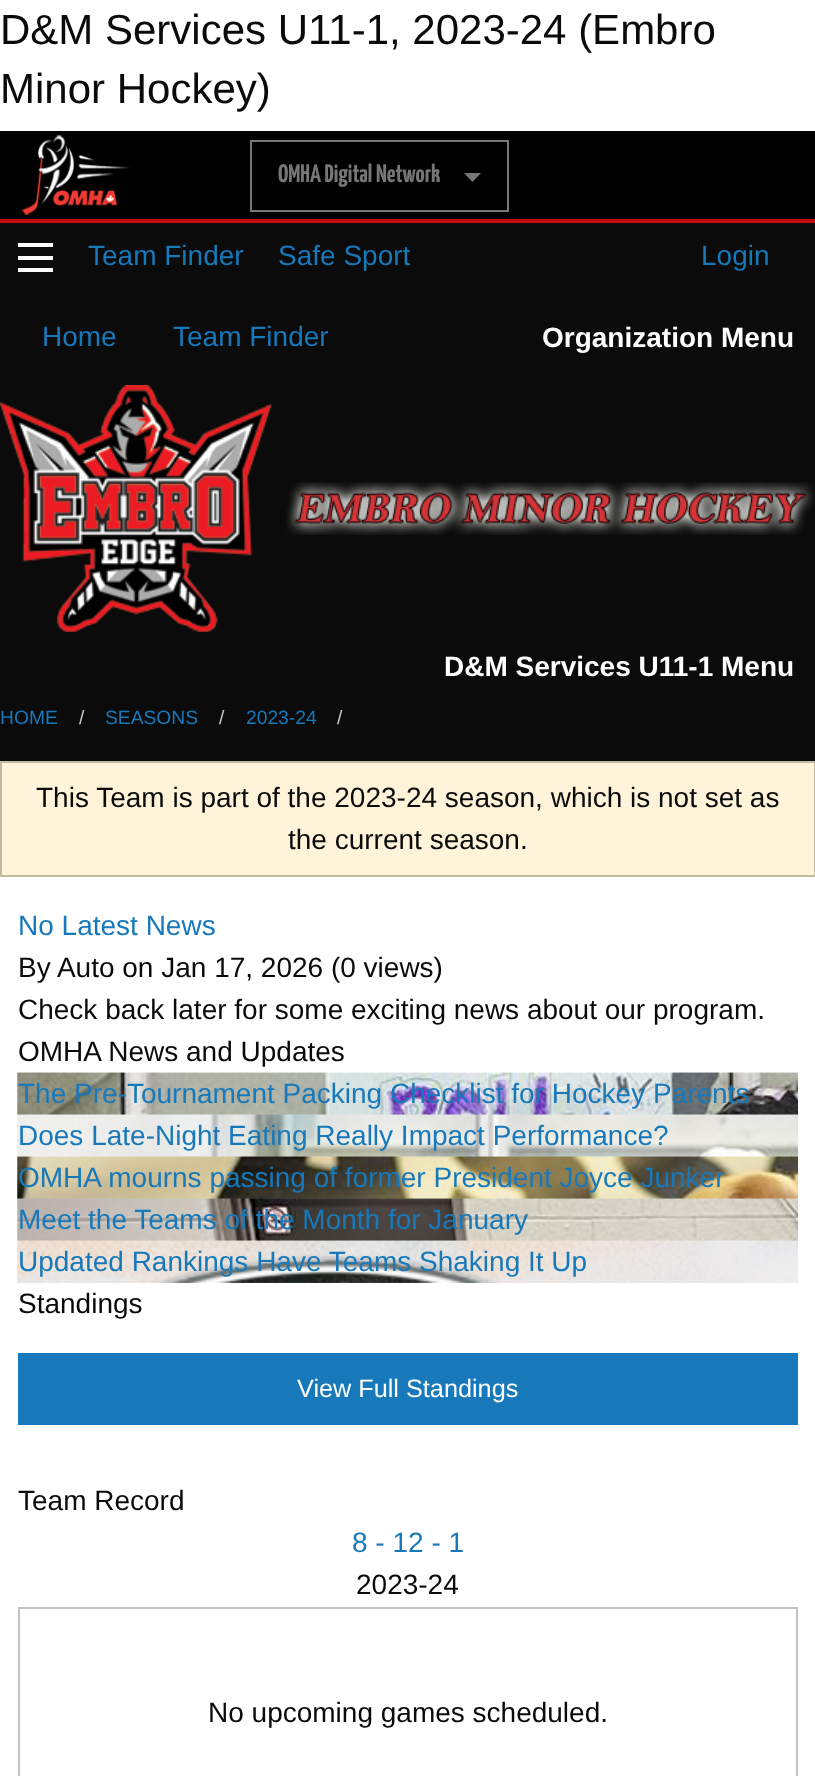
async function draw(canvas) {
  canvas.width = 815;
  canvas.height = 1776;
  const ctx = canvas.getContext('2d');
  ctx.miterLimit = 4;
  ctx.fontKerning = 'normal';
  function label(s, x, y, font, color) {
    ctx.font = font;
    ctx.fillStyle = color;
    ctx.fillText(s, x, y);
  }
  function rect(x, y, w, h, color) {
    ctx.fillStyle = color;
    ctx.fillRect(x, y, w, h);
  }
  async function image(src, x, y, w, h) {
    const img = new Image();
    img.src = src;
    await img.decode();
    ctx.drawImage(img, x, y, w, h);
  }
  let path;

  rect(0, 0, 815, 1776, '#fff');
  label('D&M Services U11-1, 2023-24 (Embro', 0, 44, '42px Liberation Sans', '#0a0a0a');
  label('Minor Hockey)', 0, 103, '42px Liberation Sans', '#0a0a0a');
  rect(0, 131, 815, 88, '#000');
  rect(0, 219, 815, 4, '#c60c0c');
  await image('assets/img1.png', 21, 135, 110, 80);
  ctx.strokeStyle = '#767676';
  ctx.lineWidth = 2;
  ctx.strokeRect(251, 141, 257, 70);
  label('OMHA Digital Network', 278, 182, '200 25.25px Yanone Kaffeesatz', '#767676');
  path = new Path2D('M464 173H481L472.5 182Z');
  ctx.fill(path);
  rect(0, 223, 815, 538, '#0b0b0b');
  rect(18, 268, 35, 4, '#fefefe');
  rect(18, 256, 35, 4, '#fefefe');
  rect(18, 243, 35, 4, '#fefefe');
  label('Team Finder', 88, 265, '28px Liberation Sans', '#1779ba');
  label('Safe Sport', 278, 265, '28px Liberation Sans', '#1779ba');
  label('Login', 701, 265, '28px Liberation Sans', '#1779ba');
  label('Home', 42, 346, '28px Liberation Sans', '#1779ba');
  label('Team Finder', 173, 346, '28px Liberation Sans', '#1779ba');
  label('Organization Menu', 542, 347, 'bold 28px Liberation Sans', '#fefefe');
  await image('assets/img2.png', 0, 385, 272, 247);
  await image('assets/img3.png', 286, 482, 529, 53);
  label('D&M Services U11-1 Menu', 444, 676, 'bold 28px Liberation Sans', '#fefefe');
  label('HOME', 0, 724, '19.25px Liberation Sans', '#1779ba');
  label('/', 79, 724, '19.25px Liberation Sans', '#cacaca');
  label('SEASONS', 105, 724, '19.25px Liberation Sans', '#1779ba');
  label('/', 219, 724, '19.25px Liberation Sans', '#cacaca');
  label('2023-24', 246, 724, '19.25px Liberation Sans', '#1779ba');
  label('/', 337, 724, '19.25px Liberation Sans', '#cacaca');
  ctx.fillStyle = '#fff3d9';
  ctx.beginPath();
  ctx.rect(1, 762, 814, 114);
  ctx.fill();
  ctx.strokeStyle = '#c2b9a5';
  ctx.stroke();
  label('This Team is part of the 2023-24 season, which is not set as', 36, 807, '28px Liberation Sans', '#0a0a0a');
  label('the current season.', 288, 849, '28px Liberation Sans', '#0a0a0a');
  label('No Latest News', 18, 935, '28px Liberation Sans', '#1779ba');
  label('By Auto on Jan 17, 2026 (0 views)', 18, 977, '28px Liberation Sans', '#0a0a0a');
  label('Check back later for some exciting news about our program.', 18, 1019, '28px Liberation Sans', '#0a0a0a');
  label('OMHA News and Updates', 18, 1061, '28px Liberation Sans', '#0a0a0a');
  await image('assets/img4.png', 17, 1072, 781, 43);
  await image('assets/img5.png', 17, 1072, 781, 43);
  label('The Pre-Tournament Packing Checklist for Hockey Parents', 18, 1103, '28px Liberation Sans', '#1779ba');
  await image('assets/img6.png', 17, 1114, 781, 43);
  await image('assets/img7.png', 17, 1114, 781, 43);
  label('Does Late-Night Eating Really Impact Performance?', 18, 1145, '28px Liberation Sans', '#1779ba');
  await image('assets/img8.png', 17, 1156, 781, 43);
  await image('assets/img9.png', 17, 1156, 781, 43);
  label('OMHA mourns passing of former President Joyce Junker', 18, 1187, '28px Liberation Sans', '#1779ba');
  await image('assets/img10.png', 17, 1198, 781, 43);
  await image('assets/img11.png', 17, 1198, 781, 43);
  label('Meet the Teams of the Month for January', 18, 1229, '28px Liberation Sans', '#1779ba');
  await image('assets/img12.png', 17, 1240, 781, 43);
  await image('assets/img13.png', 17, 1240, 781, 43);
  label('Updated Rankings Have Teams Shaking It Up', 18, 1271, '28px Liberation Sans', '#1779ba');
  label('Standings', 18, 1313, '28px Liberation Sans', '#0a0a0a');
  rect(18, 1353, 780, 72, '#1779ba');
  label('View Full Standings', 297, 1397, '25.25px Liberation Sans', '#fefefe');
  label('Team Record', 18, 1510, '28px Liberation Sans', '#0a0a0a');
  label('8 - 12 - 1', 352, 1552, '28px Liberation Sans', '#1779ba');
  label('2023-24', 356, 1594, '28px Liberation Sans', '#0a0a0a');
  ctx.strokeStyle = '#c2c2c2';
  ctx.strokeRect(19, 1608, 778, 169);
  label('No upcoming games scheduled.', 208, 1722, '28px Liberation Sans', '#0a0a0a');
}

draw(document.querySelector('canvas'));
